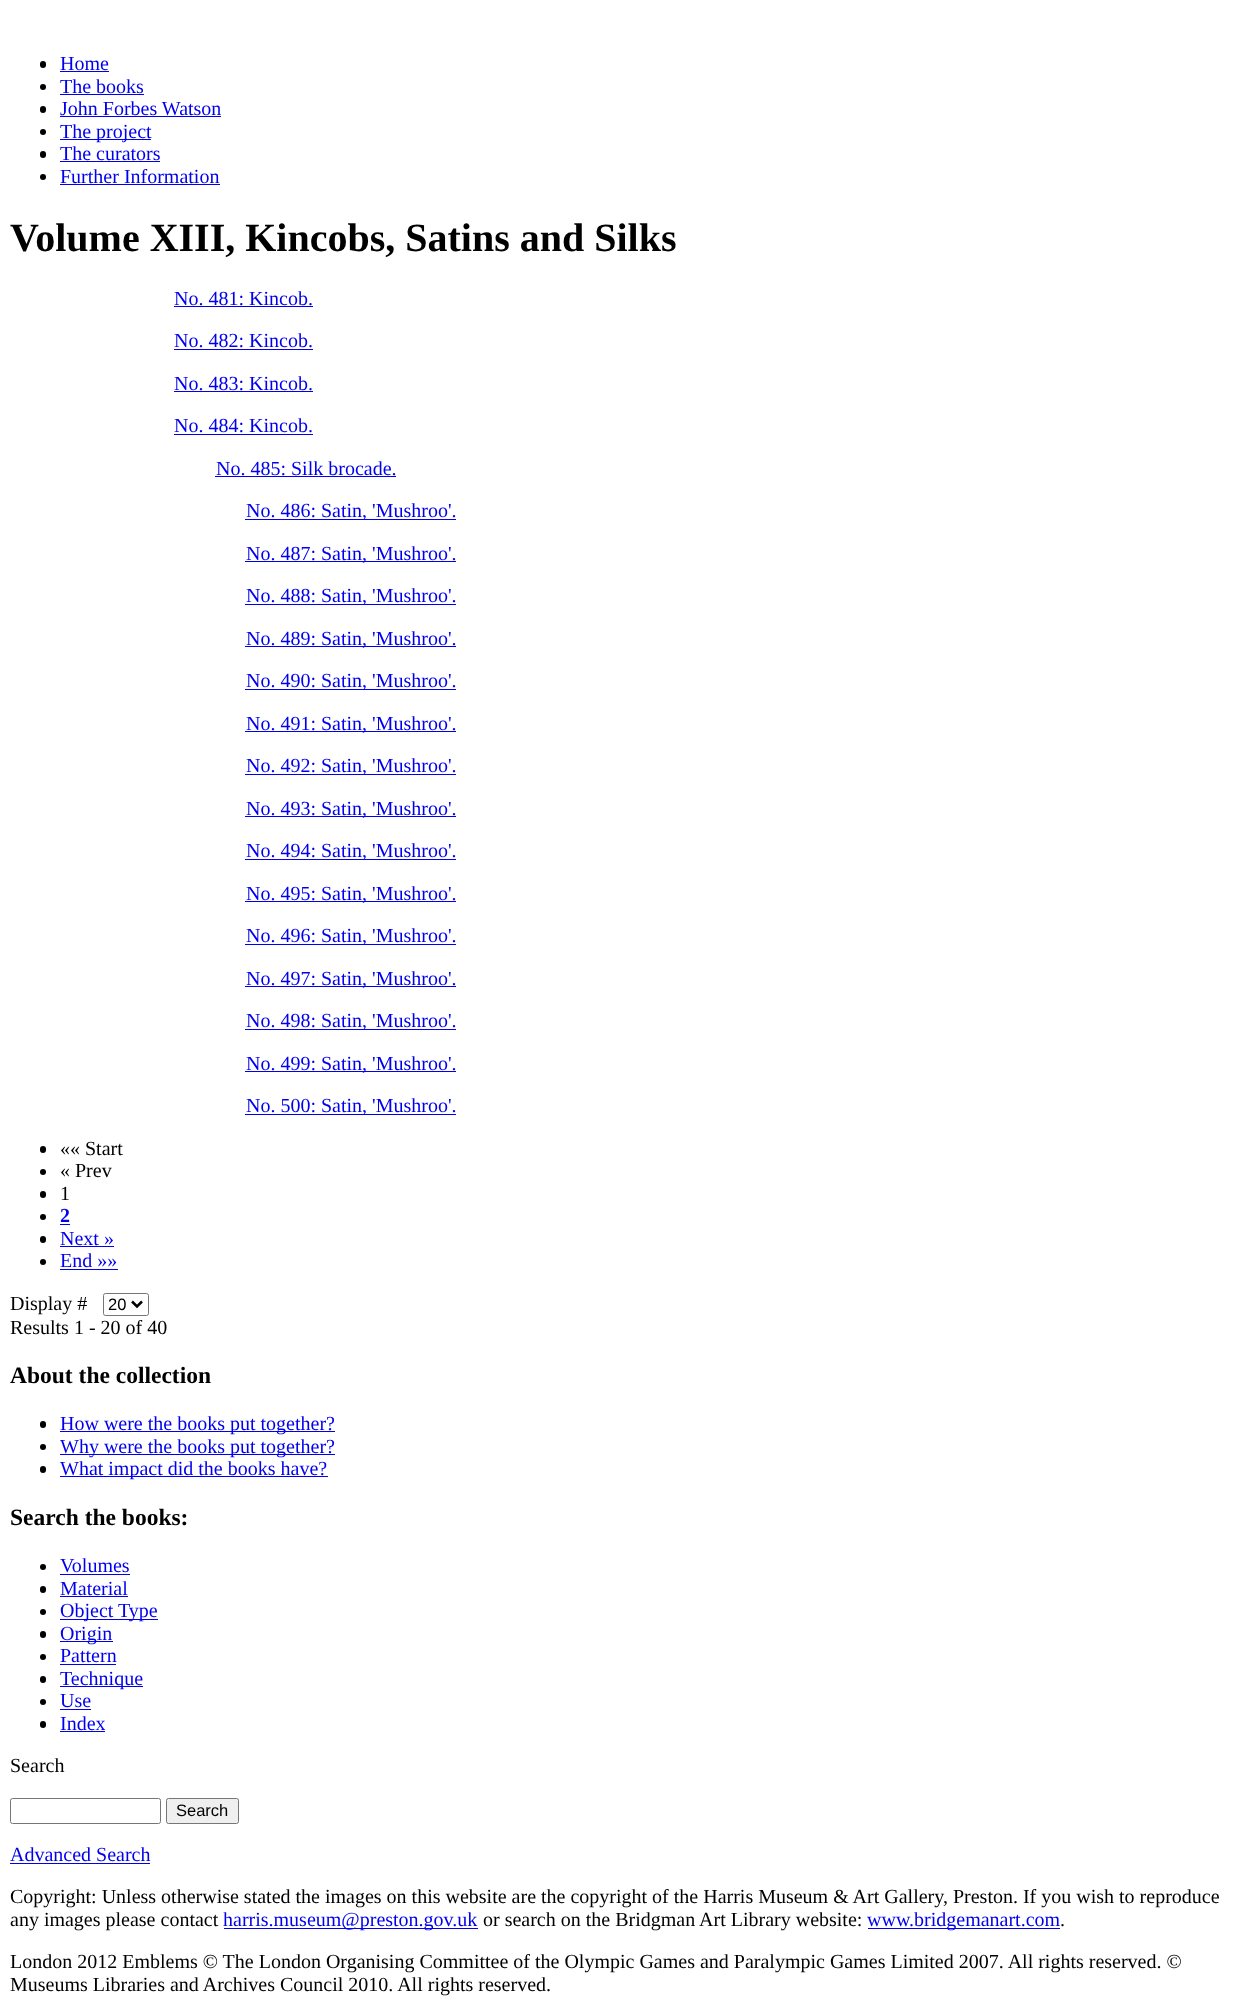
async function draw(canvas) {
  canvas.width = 1252;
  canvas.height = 2013;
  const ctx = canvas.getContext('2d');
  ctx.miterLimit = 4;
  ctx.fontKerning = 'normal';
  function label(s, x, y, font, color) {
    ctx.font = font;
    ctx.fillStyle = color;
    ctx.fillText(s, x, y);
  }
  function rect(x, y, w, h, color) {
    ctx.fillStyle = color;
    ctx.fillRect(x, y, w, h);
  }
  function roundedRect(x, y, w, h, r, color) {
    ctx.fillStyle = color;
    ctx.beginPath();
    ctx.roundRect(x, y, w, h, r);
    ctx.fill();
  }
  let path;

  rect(0, 0, 1252, 2013, '#fff');
  roundedRect(40, 61, 6, 7, 3, '#000');
  label('Home', 60, 70, '20px Liberation Serif', '#00e');
  rect(60, 71, 49, 1, '#00e');
  ctx.fillStyle = '#000';
  ctx.beginPath();
  ctx.arc(43, 87, 3, 0, 2 * Math.PI);
  ctx.fill();
  label('The books', 60, 93, '20px Liberation Serif', '#00e');
  rect(60, 94, 84, 1, '#00e');
  roundedRect(40, 106, 6, 7, 3, '#000');
  label('John Forbes Watson', 60, 115, '20px Liberation Serif', '#00e');
  rect(60, 116, 161, 1, '#00e');
  ctx.fillStyle = '#000';
  ctx.beginPath();
  ctx.arc(43, 132, 3, 0, 2 * Math.PI);
  ctx.fill();
  rect(60, 139, 91, 1, '#00e');
  label('The project', 60, 138, '20px Liberation Serif', '#00e');
  roundedRect(40, 151, 6, 7, 3, '#000');
  label('The curators', 60, 160, '20px Liberation Serif', '#00e');
  rect(60, 161, 100, 1, '#00e');
  ctx.fillStyle = '#000';
  ctx.beginPath();
  ctx.arc(43, 177, 3, 0, 2 * Math.PI);
  ctx.fill();
  label('Further Information', 60, 183, '20px Liberation Serif', '#00e');
  rect(60, 184, 160, 1, '#00e');
  label('Volume XIII, Kincobs, Satins and Silks', 10, 251, 'bold 40px Liberation Serif', '#000');
  label('No. 481: Kincob.', 174, 305, '20px Liberation Serif', '#00e');
  rect(174, 306, 139, 1, '#00e');
  label('No. 482: Kincob.', 174, 347, '20px Liberation Serif', '#00e');
  rect(174, 349, 139, 1, '#00e');
  label('No. 483: Kincob.', 174, 390, '20px Liberation Serif', '#00e');
  rect(174, 391, 139, 1, '#00e');
  label('No. 484: Kincob.', 174, 432, '20px Liberation Serif', '#00e');
  rect(174, 434, 139, 1, '#00e');
  label('No. 485: Silk brocade.', 216, 475, '20px Liberation Serif', '#00e');
  rect(215, 476, 181, 1, '#00e');
  rect(245, 519, 211, 1, '#00e');
  label('No. 486: Satin, \'Mushroo\'.', 246, 517, '20px Liberation Serif', '#00e');
  rect(245, 561, 211, 1, '#00e');
  label('No. 487: Satin, \'Mushroo\'.', 246, 560, '20px Liberation Serif', '#00e');
  rect(245, 604, 211, 1, '#00e');
  label('No. 488: Satin, \'Mushroo\'.', 246, 602, '20px Liberation Serif', '#00e');
  rect(245, 646, 211, 1, '#00e');
  label('No. 489: Satin, \'Mushroo\'.', 246, 645, '20px Liberation Serif', '#00e');
  rect(245, 689, 211, 1, '#00e');
  label('No. 490: Satin, \'Mushroo\'.', 246, 687, '20px Liberation Serif', '#00e');
  rect(245, 731, 211, 1, '#00e');
  label('No. 491: Satin, \'Mushroo\'.', 246, 730, '20px Liberation Serif', '#00e');
  rect(245, 774, 211, 1, '#00e');
  label('No. 492: Satin, \'Mushroo\'.', 246, 772, '20px Liberation Serif', '#00e');
  rect(245, 816, 211, 1, '#00e');
  label('No. 493: Satin, \'Mushroo\'.', 246, 815, '20px Liberation Serif', '#00e');
  rect(245, 859, 211, 1, '#00e');
  label('No. 494: Satin, \'Mushroo\'.', 246, 857, '20px Liberation Serif', '#00e');
  rect(245, 901, 211, 1, '#00e');
  label('No. 495: Satin, \'Mushroo\'.', 246, 900, '20px Liberation Serif', '#00e');
  rect(245, 944, 211, 1, '#00e');
  label('No. 496: Satin, \'Mushroo\'.', 246, 942, '20px Liberation Serif', '#00e');
  rect(245, 986, 211, 1, '#00e');
  label('No. 497: Satin, \'Mushroo\'.', 246, 985, '20px Liberation Serif', '#00e');
  rect(245, 1029, 211, 1, '#00e');
  label('No. 498: Satin, \'Mushroo\'.', 246, 1027, '20px Liberation Serif', '#00e');
  rect(245, 1071, 211, 1, '#00e');
  label('No. 499: Satin, \'Mushroo\'.', 246, 1070, '20px Liberation Serif', '#00e');
  rect(245, 1114, 211, 1, '#00e');
  label('No. 500: Satin, \'Mushroo\'.', 246, 1112, '20px Liberation Serif', '#00e');
  roundedRect(40, 1146, 6, 7, 3, '#000');
  label('«« Start', 60, 1155, '20px Liberation Serif', '#000');
  ctx.beginPath();
  ctx.arc(43, 1172, 3, 0, 2 * Math.PI);
  ctx.fill();
  label('« Prev', 60, 1177, '20px Liberation Serif', '#000');
  roundedRect(40, 1191, 6, 7, 3, '#000');
  label('1', 60, 1200, '20px Liberation Serif', '#000');
  ctx.beginPath();
  ctx.arc(43, 1217, 3, 0, 2 * Math.PI);
  ctx.fill();
  label('2', 60, 1222, 'bold 20px Liberation Serif', '#00e');
  rect(60, 1224, 10, 1, '#00e');
  roundedRect(40, 1236, 6, 7, 3, '#000');
  label('Next »', 60, 1245, '20px Liberation Serif', '#00e');
  rect(60, 1246, 54, 1, '#00e');
  ctx.fillStyle = '#000';
  ctx.beginPath();
  ctx.arc(43, 1262, 3, 0, 2 * Math.PI);
  ctx.fill();
  label('End »»', 60, 1267, '20px Liberation Serif', '#00e');
  rect(60, 1269, 58, 1, '#00e');
  label('Display #', 10, 1310, '20px Liberation Serif', '#000');
  ctx.beginPath();
  ctx.roundRect(103.5, 1293.5, 45, 22, 2);
  ctx.strokeStyle = '#767676';
  ctx.stroke();
  path = new Path2D('M132 1301.5L137 1306.5L142 1301.5');
  ctx.strokeStyle = '#000';
  ctx.lineWidth = 2.5;
  ctx.stroke(path);
  label('20', 108, 1310, '16.5px Liberation Sans', '#000');
  label('Results 1 - 20 of 40', 10, 1334, '20px Liberation Serif', '#000');
  label('About the collection', 10, 1383, 'bold 23.5px Liberation Serif', '#000');
  roundedRect(40, 1421, 6, 7, 3, '#000');
  rect(60, 1431, 275, 1, '#00e');
  label('How were the books put together?', 60, 1430, '20px Liberation Serif', '#00e');
  ctx.fillStyle = '#000';
  ctx.beginPath();
  ctx.arc(43, 1447, 3, 0, 2 * Math.PI);
  ctx.fill();
  rect(60, 1454, 275, 1, '#00e');
  label('Why were the books put together?', 60, 1453, '20px Liberation Serif', '#00e');
  roundedRect(40, 1466, 6, 7, 3, '#000');
  rect(60, 1476, 268, 1, '#00e');
  label('What impact did the books have?', 60, 1475, '20px Liberation Serif', '#00e');
  label('Search the books:', 10, 1525, 'bold 23.5px Liberation Serif', '#000');
  ctx.beginPath();
  ctx.arc(43, 1567, 3, 0, 2 * Math.PI);
  ctx.fill();
  label('Volumes', 60, 1572, '20px Liberation Serif', '#00e');
  rect(60, 1574, 70, 1, '#00e');
  roundedRect(40, 1586, 6, 7, 3, '#000');
  label('Material', 60, 1595, '20px Liberation Serif', '#00e');
  rect(60, 1596, 68, 1, '#00e');
  ctx.fillStyle = '#000';
  ctx.beginPath();
  ctx.arc(43, 1612, 3, 0, 2 * Math.PI);
  ctx.fill();
  rect(60, 1619, 98, 1, '#00e');
  label('Object Type', 60, 1617, '20px Liberation Serif', '#00e');
  roundedRect(40, 1631, 6, 7, 3, '#000');
  rect(60, 1641, 53, 1, '#00e');
  label('Origin', 60, 1640, '20px Liberation Serif', '#00e');
  ctx.fillStyle = '#000';
  ctx.beginPath();
  ctx.arc(43, 1657, 3, 0, 2 * Math.PI);
  ctx.fill();
  label('Pattern', 60, 1662, '20px Liberation Serif', '#00e');
  rect(60, 1664, 56, 1, '#00e');
  roundedRect(40, 1676, 6, 7, 3, '#000');
  rect(60, 1686, 83, 1, '#00e');
  label('Technique', 60, 1685, '20px Liberation Serif', '#00e');
  ctx.fillStyle = '#000';
  ctx.beginPath();
  ctx.arc(43, 1702, 3, 0, 2 * Math.PI);
  ctx.fill();
  label('Use', 60, 1707, '20px Liberation Serif', '#00e');
  rect(60, 1709, 31, 1, '#00e');
  roundedRect(40, 1721, 6, 7, 3, '#000');
  label('Index', 60, 1730, '20px Liberation Serif', '#00e');
  rect(60, 1731, 45, 1, '#00e');
  label('Search', 10, 1772, '20px Liberation Serif', '#000');
  ctx.beginPath();
  ctx.roundRect(10.5, 1798.5, 150, 25, 2);
  ctx.strokeStyle = '#767676';
  ctx.lineWidth = 1;
  ctx.stroke();
  ctx.fillStyle = '#efefef';
  ctx.beginPath();
  ctx.roundRect(166.5, 1798.5, 72, 25, 2);
  ctx.fill();
  ctx.stroke();
  label('Search', 176, 1816, '16.5px Liberation Sans', '#000');
  label('Advanced Search', 10, 1861, '20px Liberation Serif', '#00e');
  rect(10, 1863, 140, 1, '#00e');
  label('Copyright: Unless otherwise stated the images on this website are the copyright of the Harris Museum & Art Gallery, Preston. If you wish to reproduce', 10, 1903, '20px Liberation Serif', '#000');
  label('any images please contact', 10, 1926, '20px Liberation Serif', '#000');
  rect(224, 1928, 254, 1, '#00e');
  label('harris.museum@preston.gov.uk', 223, 1926, '20px Liberation Serif', '#00e');
  label('or search on the Bridgman Art Library website:', 483, 1926, '20px Liberation Serif', '#000');
  rect(868, 1928, 192, 1, '#00e');
  label('www.bridgemanart.com', 867, 1926, '20px Liberation Serif', '#00e');
  label('.', 1060, 1926, '20px Liberation Serif', '#000');
  label('London 2012 Emblems © The London Organising Committee of the Olympic Games and Paralympic Games Limited 2007. All rights reserved. ©', 10, 1968, '20px Liberation Serif', '#000');
  label('Museums Libraries and Archives Council 2010. All rights reserved.', 10, 1991, '20px Liberation Serif', '#000');
}

draw(document.querySelector('canvas'));
